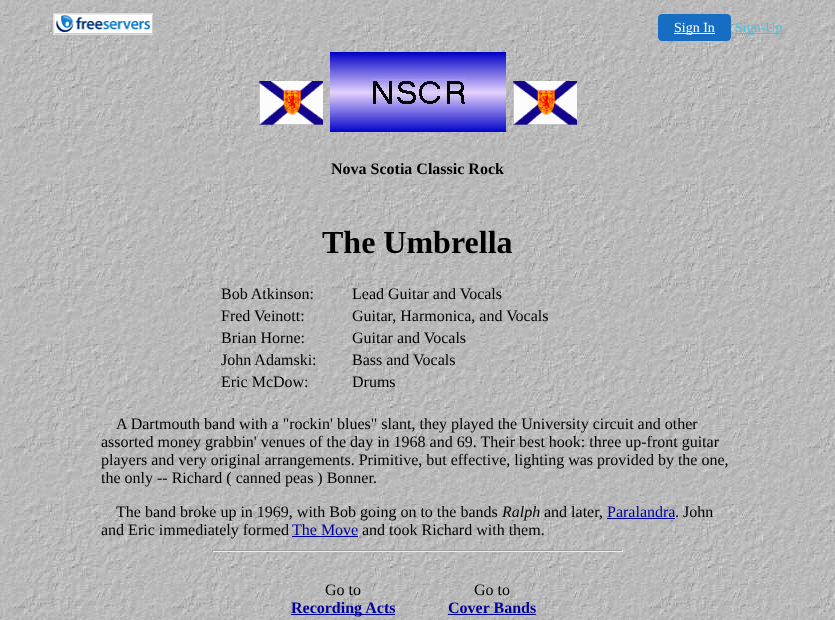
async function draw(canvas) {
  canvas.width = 835;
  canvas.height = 620;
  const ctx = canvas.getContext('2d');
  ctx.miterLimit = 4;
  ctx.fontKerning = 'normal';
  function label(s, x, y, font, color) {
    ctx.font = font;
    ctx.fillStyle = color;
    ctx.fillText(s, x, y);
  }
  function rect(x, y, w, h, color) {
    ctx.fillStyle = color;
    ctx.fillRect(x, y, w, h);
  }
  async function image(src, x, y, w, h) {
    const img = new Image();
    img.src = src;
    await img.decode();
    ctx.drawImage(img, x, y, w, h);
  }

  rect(0, 0, 835, 620, '#fff');
  await image('assets/img1.png', 0, 0, 835, 620);
  await image('assets/img2.png', 53, 13, 100, 22);
  ctx.fillStyle = '#166dc2';
  ctx.beginPath();
  ctx.roundRect(658.5, 14.5, 72, 26, 3.5);
  ctx.fill();
  ctx.strokeStyle = '#166dc2';
  ctx.stroke();
  rect(674, 33, 41, 1, '#fff');
  label('Sign In', 674, 32, '14px Liberation Serif', '#fff');
  rect(735, 33, 48, 1, '#41c5e4');
  label('Sign-Up', 735, 32, '14px Liberation Serif', '#41c5e4');
  await image('assets/img3.png', 259, 81, 64, 44);
  await image('assets/img4.png', 330, 52, 176, 80);
  await image('assets/img3.png', 513, 81, 64, 44);
  label('Nova Scotia Classic Rock', 331, 174, 'bold 16px Liberation Serif', '#000');
  label('The Umbrella', 322, 253, 'bold 32px Liberation Serif', '#000');
  label('Bob Atkinson:', 221, 299, '16px Liberation Serif', '#000');
  label('Lead Guitar and Vocals', 352, 299, '16px Liberation Serif', '#000');
  label('Fred Veinott:', 221, 321, '16px Liberation Serif', '#000');
  label('Guitar, Harmonica, and Vocals', 352, 321, '16px Liberation Serif', '#000');
  label('Brian Horne:', 221, 343, '16px Liberation Serif', '#000');
  label('Guitar and Vocals', 352, 343, '16px Liberation Serif', '#000');
  label('John Adamski:', 221, 365, '16px Liberation Serif', '#000');
  label('Bass and Vocals', 352, 365, '16px Liberation Serif', '#000');
  label('Eric McDow:', 221, 387, '16px Liberation Serif', '#000');
  label('Drums', 352, 387, '16px Liberation Serif', '#000');
  label('A Dartmouth band with a "rockin\' blues" slant, they played the University circuit and other', 116, 429, '16px Liberation Serif', '#000');
  label('assorted money grabbin\' venues of the day in 1968 and 69. Their best hook: three up-front guitar', 101, 447, '16px Liberation Serif', '#000');
  label('players and very original arrangements. Primitive, but effective, lighting was provided by the one,', 101, 465, '16px Liberation Serif', '#000');
  label('the only -- Richard ( canned peas ) Bonner.', 101, 483, '16px Liberation Serif', '#000');
  label('The band broke up in 1969, with Bob going on to the bands', 116, 517, '16px Liberation Serif', '#000');
  label('Ralph', 502, 517, 'italic 16px Liberation Serif', '#000');
  label('and later,', 544, 517, '16px Liberation Serif', '#000');
  label('Paralandra', 607, 517, '16px Liberation Serif', '#009');
  rect(607, 518, 68, 1, '#009');
  label('. John', 675, 517, '16px Liberation Serif', '#000');
  label('and Eric immediately formed', 101, 535, '16px Liberation Serif', '#000');
  label('The Move', 292, 535, '16px Liberation Serif', '#009');
  rect(292, 536, 66, 1, '#009');
  label('and took Richard with them.', 362, 535, '16px Liberation Serif', '#000');
  rect(212, 550, 411, 1, '#9f9f9f');
  rect(622, 550, 1, 2, '#eee');
  rect(212, 551, 411, 1, '#eee');
  rect(212, 550, 1, 2, '#9f9f9f');
  label('Go to', 325, 595, '16px Liberation Serif', '#000');
  rect(291, 614, 104, 1, '#009');
  label('Recording Acts', 291, 613, 'bold 16px Liberation Serif', '#009');
  label('Go to', 474, 595, '16px Liberation Serif', '#000');
  label('Cover Bands', 448, 613, 'bold 16px Liberation Serif', '#009');
  rect(448, 614, 88, 1, '#009');
}

draw(document.querySelector('canvas'));
